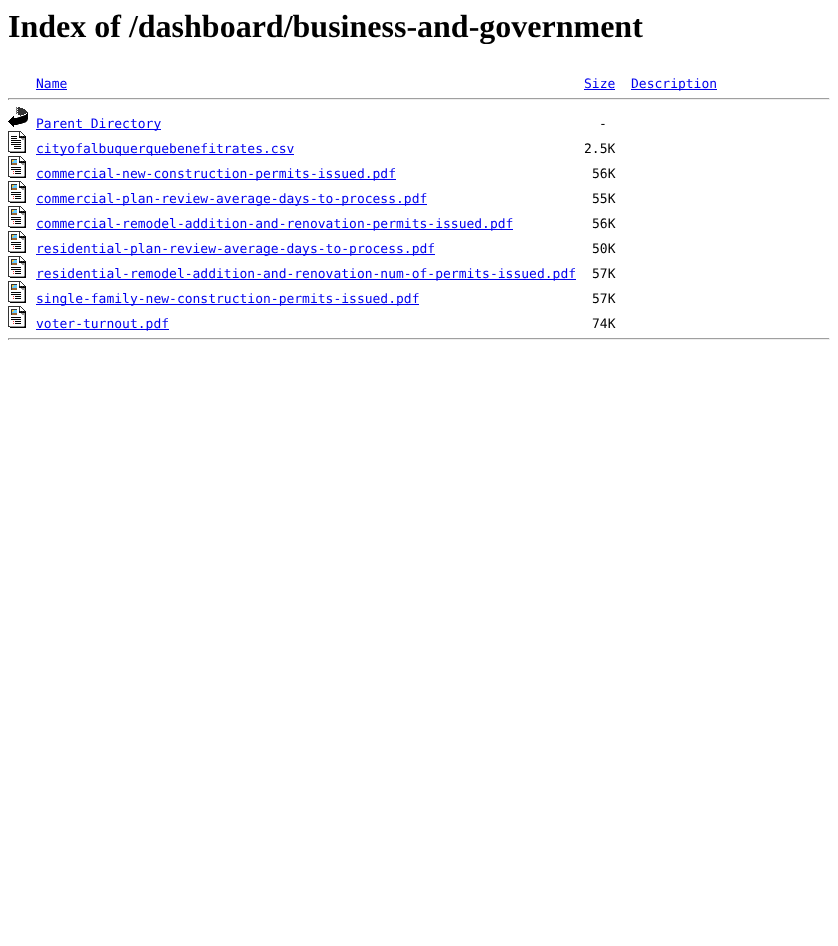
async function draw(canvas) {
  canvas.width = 838;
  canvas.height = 946;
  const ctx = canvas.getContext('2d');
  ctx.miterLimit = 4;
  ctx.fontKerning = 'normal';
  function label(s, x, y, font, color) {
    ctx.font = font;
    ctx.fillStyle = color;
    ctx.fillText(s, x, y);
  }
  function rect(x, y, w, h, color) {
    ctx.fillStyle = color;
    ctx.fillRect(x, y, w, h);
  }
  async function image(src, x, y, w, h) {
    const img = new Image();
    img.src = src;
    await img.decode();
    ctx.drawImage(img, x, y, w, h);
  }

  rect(0, 0, 838, 946, '#fff');
  label('Index of /dashboard/business-and-government', 8, 37, 'bold 32px Liberation Serif', '#000');
  label('Name', 36, 88, '13px DejaVu Sans Mono', '#00e');
  rect(36, 89, 31, 1, '#00e');
  label('Size', 584, 88, '13px DejaVu Sans Mono', '#00e');
  rect(584, 89, 31, 1, '#00e');
  rect(631, 89, 86, 1, '#00e');
  label('Description', 631, 88, '13px DejaVu Sans Mono', '#00e');
  rect(8, 98, 822, 1, '#9f9f9f');
  rect(829, 98, 1, 2, '#eee');
  rect(8, 99, 822, 1, '#eee');
  rect(8, 98, 1, 2, '#9f9f9f');
  await image('assets/img1.png', 8, 107, 20, 20);
  rect(36, 129, 125, 1, '#00e');
  label('Parent Directory', 36, 128, '13px DejaVu Sans Mono', '#00e');
  label('-', 599, 128, '13px DejaVu Sans Mono', '#000');
  await image('assets/img2.png', 8, 131, 18, 22);
  rect(36, 154, 258, 1, '#00e');
  label('cityofalbuquerquebenefitrates.csv', 36, 153, '13px DejaVu Sans Mono', '#00e');
  label('2.5K', 584, 153, '13px DejaVu Sans Mono', '#000');
  await image('assets/img3.png', 8, 156, 18, 22);
  rect(36, 179, 360, 1, '#00e');
  label('commercial-new-construction-permits-issued.pdf', 36, 178, '13px DejaVu Sans Mono', '#00e');
  label('56K', 592, 178, '13px DejaVu Sans Mono', '#000');
  await image('assets/img3.png', 8, 181, 18, 22);
  rect(36, 204, 391, 1, '#00e');
  label('commercial-plan-review-average-days-to-process.pdf', 36, 203, '13px DejaVu Sans Mono', '#00e');
  label('55K', 592, 203, '13px DejaVu Sans Mono', '#000');
  await image('assets/img3.png', 8, 206, 18, 22);
  rect(36, 229, 477, 1, '#00e');
  label('commercial-remodel-addition-and-renovation-permits-issued.pdf', 36, 228, '13px DejaVu Sans Mono', '#00e');
  label('56K', 592, 228, '13px DejaVu Sans Mono', '#000');
  await image('assets/img3.png', 8, 231, 18, 22);
  rect(36, 254, 399, 1, '#00e');
  label('residential-plan-review-average-days-to-process.pdf', 36, 253, '13px DejaVu Sans Mono', '#00e');
  label('50K', 592, 253, '13px DejaVu Sans Mono', '#000');
  await image('assets/img3.png', 8, 256, 18, 22);
  rect(36, 279, 540, 1, '#00e');
  label('residential-remodel-addition-and-renovation-num-of-permits-issued.pdf', 36, 278, '13px DejaVu Sans Mono', '#00e');
  label('57K', 592, 278, '13px DejaVu Sans Mono', '#000');
  await image('assets/img3.png', 8, 281, 18, 22);
  rect(36, 304, 383, 1, '#00e');
  label('single-family-new-construction-permits-issued.pdf', 36, 303, '13px DejaVu Sans Mono', '#00e');
  label('57K', 592, 303, '13px DejaVu Sans Mono', '#000');
  await image('assets/img3.png', 8, 306, 18, 22);
  rect(36, 329, 133, 1, '#00e');
  label('voter-turnout.pdf', 36, 328, '13px DejaVu Sans Mono', '#00e');
  label('74K', 592, 328, '13px DejaVu Sans Mono', '#000');
  rect(8, 338, 822, 1, '#9f9f9f');
  rect(829, 338, 1, 2, '#eee');
  rect(8, 339, 822, 1, '#eee');
  rect(8, 338, 1, 2, '#9f9f9f');
}

draw(document.querySelector('canvas'));
